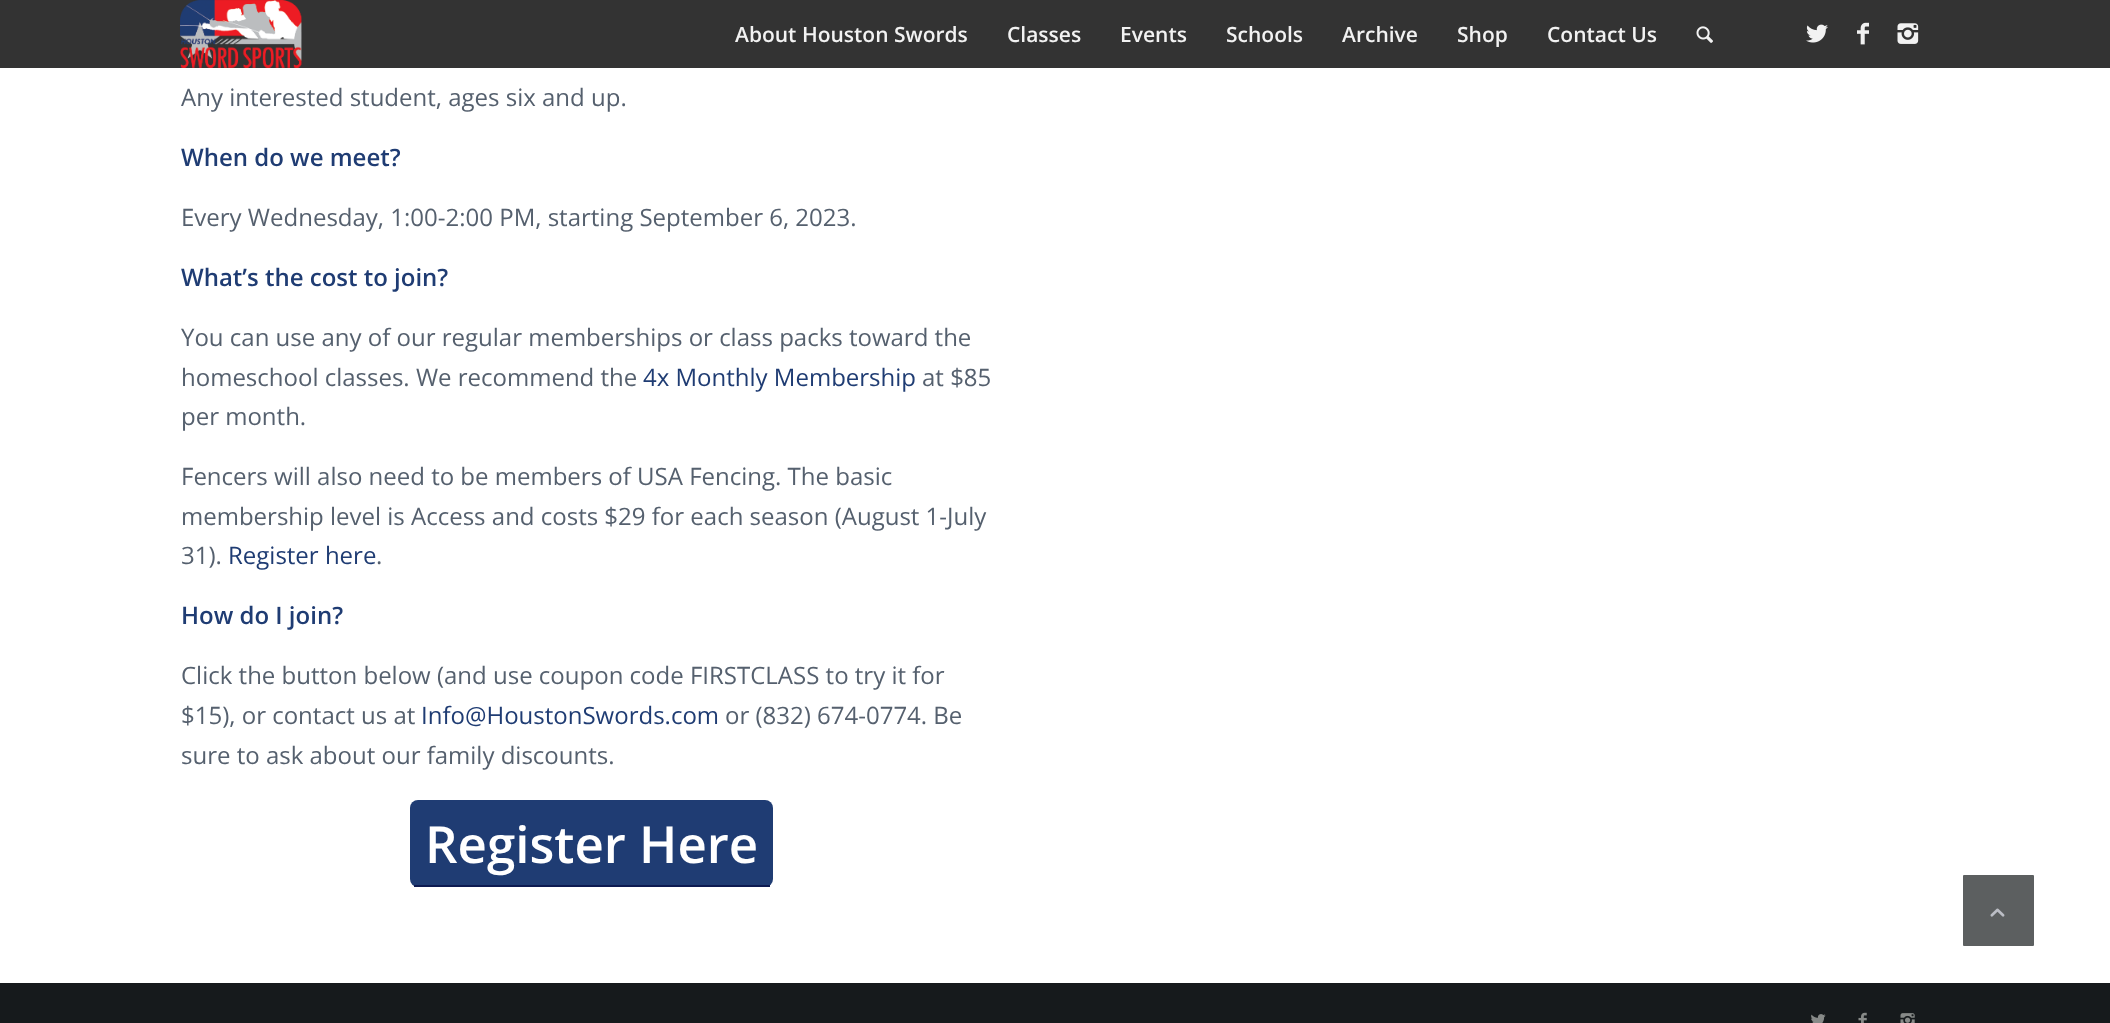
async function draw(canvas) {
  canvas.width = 2110;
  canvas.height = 1023;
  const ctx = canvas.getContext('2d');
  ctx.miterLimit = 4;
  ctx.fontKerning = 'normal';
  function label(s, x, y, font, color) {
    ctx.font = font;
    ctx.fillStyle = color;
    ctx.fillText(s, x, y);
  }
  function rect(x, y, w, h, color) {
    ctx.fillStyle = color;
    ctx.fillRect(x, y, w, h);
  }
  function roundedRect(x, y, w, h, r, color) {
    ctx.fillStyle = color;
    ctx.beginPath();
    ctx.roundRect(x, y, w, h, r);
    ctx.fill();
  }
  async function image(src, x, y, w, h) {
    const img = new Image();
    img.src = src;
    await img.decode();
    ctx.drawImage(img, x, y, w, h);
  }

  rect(0, 0, 2110, 1023, '#fff');
  rect(0, 0, 2110, 68, '#333');
  await image('assets/img1.png', 180, 0, 122, 68);
  label('About Houston Swords', 735, 42, '600 21px Open Sans', '#f2f2f2');
  label('Classes', 1007, 42, '600 21px Open Sans', '#f2f2f2');
  label('Events', 1120, 42, '600 21px Open Sans', '#f2f2f2');
  label('Schools', 1226, 42, '600 21px Open Sans', '#f2f2f2');
  label('Archive', 1342, 42, '600 21px Open Sans', '#f2f2f2');
  label('Shop', 1457, 42, '600 21px Open Sans', '#f2f2f2');
  label('Contact Us', 1547, 42, '600 21px Open Sans', '#f2f2f2');
  await image('assets/img2.png', 1696, 26, 17, 17);
  await image('assets/img3.png', 1806, 24, 22, 19);
  await image('assets/img4.png', 1857, 22, 12, 23);
  await image('assets/img5.png', 1897, 23, 22, 21);
  label('Any interested student, ages six and up.', 181, 106, '24px Open Sans', '#55606e');
  label('When do we meet?', 181, 166, '600 24px Open Sans', '#1f3c73');
  label('Every Wednesday, 1:00-2:00 PM, starting September 6, 2023.', 181, 226, '24px Open Sans', '#55606e');
  label('What’s the cost to join?', 181, 286, '600 24px Open Sans', '#1f3c73');
  label('You can use any of our regular memberships or class packs toward the', 181, 346, '24px Open Sans', '#55606e');
  label('homeschool classes. We recommend the', 181, 386, '24px Open Sans', '#55606e');
  label('4x Monthly Membership', 643, 386, '24px Open Sans', '#1f3c73');
  label('at $85', 922, 386, '24px Open Sans', '#55606e');
  label('per month.', 181, 425, '24px Open Sans', '#55606e');
  label('Fencers will also need to be members of USA Fencing. The basic', 181, 485, '24px Open Sans', '#55606e');
  label('membership level is Access and costs $29 for each season (August 1-July', 181, 525, '24px Open Sans', '#55606e');
  label('31).', 181, 564, '24px Open Sans', '#55606e');
  label('Register here', 228, 564, '24px Open Sans', '#1f3c73');
  label('.', 376, 564, '24px Open Sans', '#55606e');
  label('How do I join?', 181, 624, '600 24px Open Sans', '#1f3c73');
  label('Click the button below (and use coupon code FIRSTCLASS to try it for', 181, 684, '24px Open Sans', '#55606e');
  label('$15), or contact us at', 181, 724, '24px Open Sans', '#55606e');
  label('Info@HoustonSwords.com', 421, 724, '24px Open Sans', '#1f3c73');
  label('or (832) 674-0774. Be', 725, 724, '24px Open Sans', '#55606e');
  label('sure to ask about our family discounts.', 181, 764, '24px Open Sans', '#55606e');
  roundedRect(410, 800, 363, 87, 8, '#1f3c73');
  rect(414, 885, 356, 2, '#0d1a51');
  label('Register Here', 425, 863, '600 51px Open Sans', '#fff');
  rect(0, 983, 2110, 40, '#161a1c');
  await image('assets/img6.png', 1811, 1014, 15, 9);
  await image('assets/img7.png', 1858, 1012, 9, 11);
  await image('assets/img8.png', 1900, 1013, 15, 10);
  ctx.fillStyle = '#5c5f60';
  ctx.beginPath();
  ctx.roundRect(1962, 874, 73, 73, 2);
  ctx.fill();
  ctx.strokeStyle = '#fff';
  ctx.lineWidth = 2;
  ctx.stroke();
  await image('assets/img9.png', 1990, 908, 15, 9);
}

draw(document.querySelector('canvas'));
